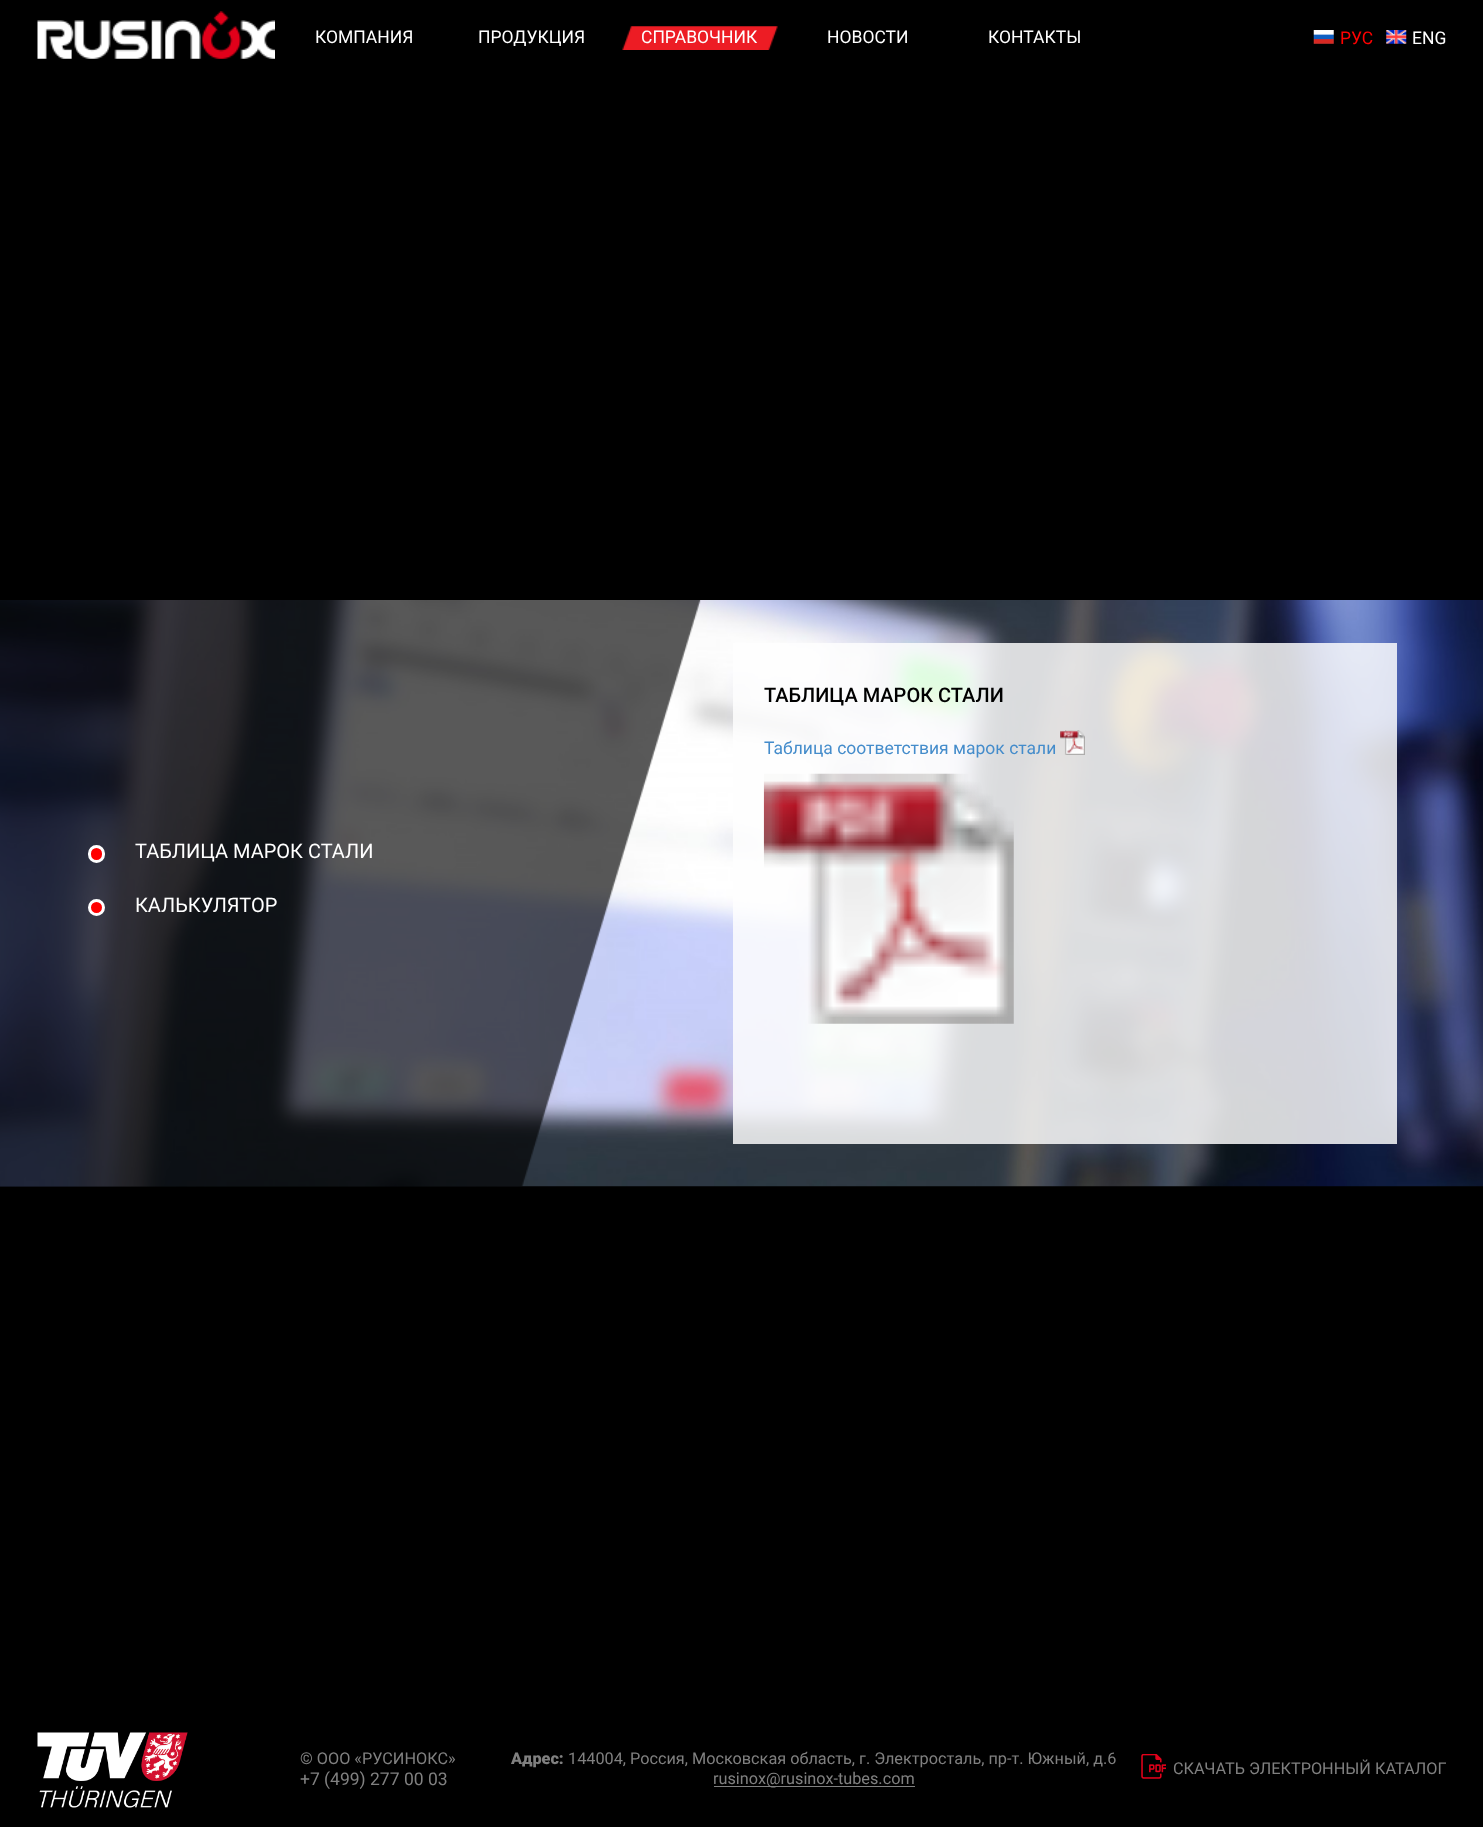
async function draw(canvas) {
  canvas.width = 1483;
  canvas.height = 1827;
  const ctx = canvas.getContext('2d');
  ctx.miterLimit = 4;
  ctx.fontKerning = 'normal';
  function label(s, x, y, font, color) {
    ctx.font = font;
    ctx.fillStyle = color;
    ctx.fillText(s, x, y);
  }
  function rect(x, y, w, h, color) {
    ctx.fillStyle = color;
    ctx.fillRect(x, y, w, h);
  }
  async function image(src, x, y, w, h) {
    const img = new Image();
    img.src = src;
    await img.decode();
    ctx.drawImage(img, x, y, w, h);
  }

  rect(0, 0, 1483, 1827, '#000');
  await image('assets/img1.png', 37, 11, 238, 48);
  label('КОМПАНИЯ', 315, 43, '17.5px Roboto', '#fff');
  label('ПРОДУКЦИЯ', 478, 43, '17.5px Roboto', '#fff');
  await image('assets/img2.png', 622, 26, 156, 24);
  label('СПРАВОЧНИК', 641, 43, '17.5px Roboto', '#fff');
  label('НОВОСТИ', 827, 43, '17.5px Roboto', '#fff');
  label('КОНТАКТЫ', 988, 43, '17.5px Roboto', '#fff');
  await image('assets/img3.png', 1313, 30, 21, 14);
  label('РУС', 1340, 44, '17.5px Roboto', '#f00');
  await image('assets/img4.png', 1386, 30, 21, 14);
  label('ENG', 1412, 44, '17.5px Roboto', '#fff');
  await image('assets/img5.png', 0, 600, 1483, 587);
  await image('assets/img6.png', 0, 600, 701, 587);
  rect(733, 643, 664, 501, '#fefefed4');
  label('ТАБЛИЦА МАРОК СТАЛИ', 764, 702, '500 20px Roboto', '#000');
  label('Таблица соответствия марок стали', 764, 754, '17.5px Roboto', '#448ccb');
  await image('assets/img7.png', 1060, 730, 25, 25);
  await image('assets/img8.png', 763, 773, 251, 251);
  ctx.fillStyle = '#f00';
  ctx.beginPath();
  ctx.roundRect(89.5, 846.5, 14, 15, 7);
  ctx.fill();
  ctx.strokeStyle = '#fff';
  ctx.lineWidth = 3;
  ctx.stroke();
  label('ТАБЛИЦА МАРОК СТАЛИ', 135, 858, '20px Roboto', '#fff');
  ctx.fillStyle = '#f00';
  ctx.beginPath();
  ctx.arc(96.5, 907.5, 7, 0, 2 * Math.PI);
  ctx.fill();
  ctx.stroke();
  label('КАЛЬКУЛЯТОР', 135, 912, '20px Roboto', '#fff');
  await image('assets/img9.png', 37, 1732, 151, 76);
  label('© ООО «РУСИНОКС»', 300, 1764, '16.25px Roboto', '#808080');
  label('+7 (499) 277 00 03', 300, 1785, '17.5px Roboto', '#808080');
  label('Адрес:', 511, 1764, '900 16.25px Roboto', '#808080');
  label('144004, Россия, Московская область, г. Электросталь, пр-т. Южный, д.6', 568, 1764, '16.25px Roboto', '#808080');
  rect(714, 1786, 201, 1, '#808080');
  label('rusinox@rusinox-tubes.com', 713, 1784, '16.25px Roboto', '#808080');
  await image('assets/img10.png', 1141, 1754, 25, 25);
  label('СКАЧАТЬ ЭЛЕКТРОННЫЙ КАТАЛОГ', 1173, 1774, '16.25px Roboto', '#808080');
}

draw(document.querySelector('canvas'));
